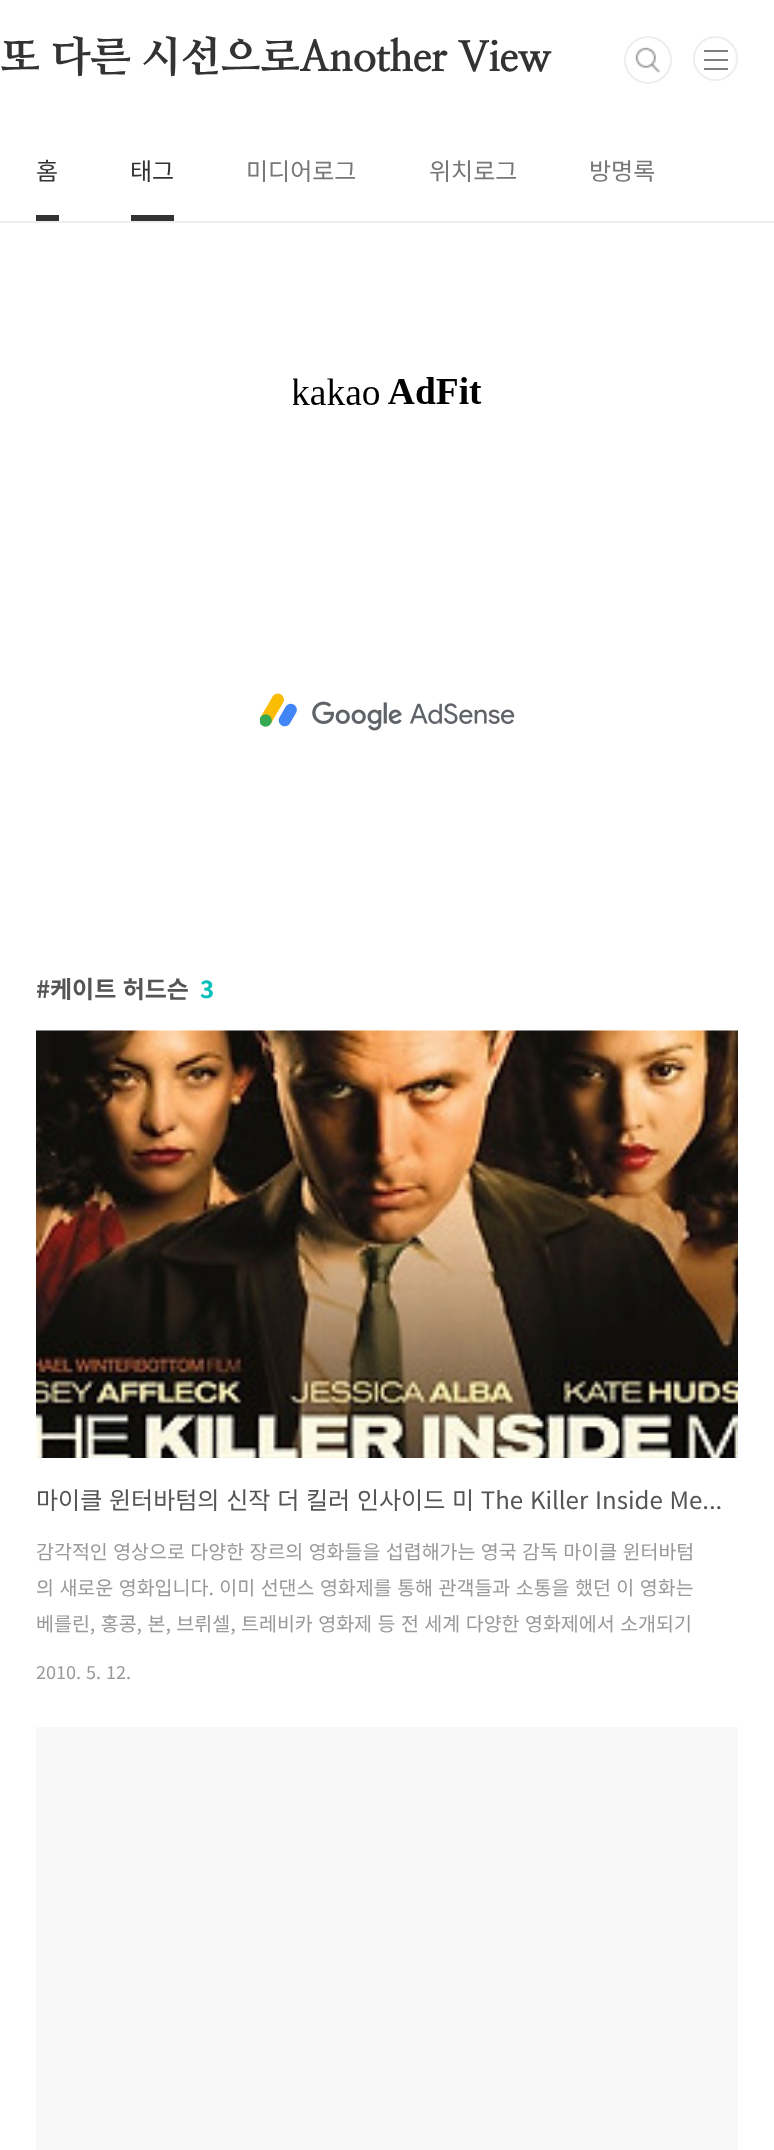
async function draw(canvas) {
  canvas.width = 774;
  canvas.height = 2150;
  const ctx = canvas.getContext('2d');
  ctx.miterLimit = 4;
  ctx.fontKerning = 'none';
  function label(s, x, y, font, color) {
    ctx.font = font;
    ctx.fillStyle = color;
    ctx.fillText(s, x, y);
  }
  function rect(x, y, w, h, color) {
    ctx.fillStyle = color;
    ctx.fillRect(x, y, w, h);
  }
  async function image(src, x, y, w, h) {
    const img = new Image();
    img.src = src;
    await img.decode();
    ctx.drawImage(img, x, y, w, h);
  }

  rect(0, 0, 774, 2150, '#fff');
  rect(0, 221, 774, 2, '#eee');
  ctx.letterSpacing = '-0.3px';
  label('또 다른 시선으로Another View', 0, 71, '800 42px NanumMyeongjo', '#333');
  ctx.beginPath();
  ctx.arc(648.5, 60.5, 21.5, 0, 2 * Math.PI);
  ctx.strokeStyle = '#eee';
  ctx.lineWidth = 2;
  ctx.stroke();
  ctx.fillStyle = '#fff';
  ctx.beginPath();
  ctx.arc(648, 60, 24, 0, 2 * Math.PI);
  ctx.fill();
  await image('assets/img1.png', 635, 47, 26, 26);
  ctx.beginPath();
  ctx.arc(648, 60, 23, 0, 2 * Math.PI);
  ctx.stroke();
  ctx.beginPath();
  ctx.arc(715.5, 58.5, 21.5, 0, 2 * Math.PI);
  ctx.stroke();
  rect(704, 50, 24, 2, '#7f7f7f');
  rect(704, 59, 24, 2, '#7f7f7f');
  rect(704, 68, 24, 2, '#7f7f7f');
  ctx.letterSpacing = '0px';
  label('홈', 36, 180, '24px Noto Sans KR', '#333');
  rect(36, 215, 23, 6, '#333');
  label('태그', 130, 180, '24px Noto Sans KR', '#333');
  rect(131, 215, 43, 6, '#333');
  label('미디어로그', 246, 180, '24px Noto Sans KR', '#777');
  label('위치로그', 429, 180, '24px Noto Sans KR', '#777');
  label('방명록', 589, 180, '24px Noto Sans KR', '#777');
  await image('assets/img2.png', 293, 377, 189, 28);
  await image('assets/img3.png', 260, 693, 255, 38);
  label('#', 36, 998, 'bold 24px Noto Sans KR', '#555');
  ctx.wordSpacing = '1px';
  label('케이트 허드슨', 50, 998, 'bold 24px Noto Sans KR', '#555');
  ctx.wordSpacing = '0px';
  label('3', 200, 998, 'bold 24px Noto Sans KR', '#04beb8');
  await image('assets/img4.png', 36, 1030, 702, 428);
  ctx.wordSpacing = '1.4px';
  label('마이클 윈터바텀의 신작 더 킬러 인사이드 미 The Killer Inside Me...', 36, 1509, '24px Noto Sans KR', '#555');
  ctx.wordSpacing = '1px';
  label('감각적인 영상으로 다양한 장르의 영화들을 섭렵해가는 영국 감독 마이클 윈터바텀', 36, 1559, '19.5px Noto Sans KR', '#999');
  ctx.wordSpacing = '1.1px';
  label('의 새로운 영화입니다. 이미 선댄스 영화제를 통해 관객들과 소통을 했던 이 영화는', 36, 1595, '19.5px Noto Sans KR', '#999');
  label('베를린, 홍콩, 본, 브뤼셀, 트레비카 영화제 등 전 세계 다양한 영화제에서 소개되기', 36, 1631, '19.5px Noto Sans KR', '#999');
  ctx.wordSpacing = '1px';
  label('2010. 5. 12.', 36, 1679, '18px Noto Sans KR', '#999');
  rect(36, 1727, 702, 423, '#f8f8f8');
}

draw(document.querySelector('canvas'));
